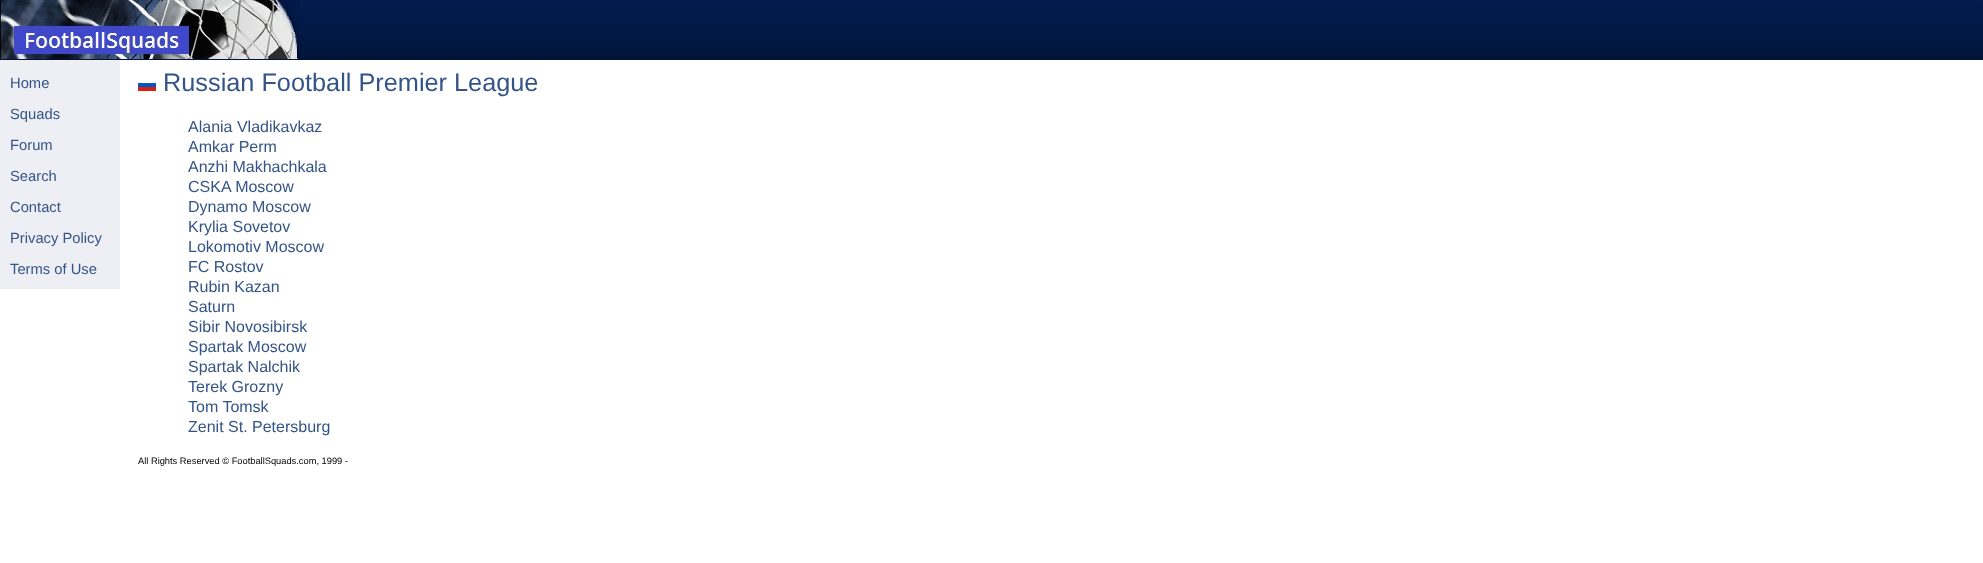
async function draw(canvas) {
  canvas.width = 1983;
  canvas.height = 563;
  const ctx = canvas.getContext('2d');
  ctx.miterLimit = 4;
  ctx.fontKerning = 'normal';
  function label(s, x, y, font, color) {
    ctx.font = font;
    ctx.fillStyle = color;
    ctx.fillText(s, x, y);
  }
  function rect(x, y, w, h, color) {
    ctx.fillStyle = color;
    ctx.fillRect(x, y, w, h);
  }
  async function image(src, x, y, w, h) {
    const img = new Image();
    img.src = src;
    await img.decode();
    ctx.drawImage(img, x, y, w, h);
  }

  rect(0, 0, 1983, 563, '#fff');
  await image('assets/img1.png', 0, 0, 1983, 60);
  await image('assets/img2.png', 0, 0, 300, 59);
  rect(0, 60, 120, 229, '#eeeff4');
  label('Home', 10, 88, '14.75px Liberation Sans', '#345487');
  label('Squads', 10, 119, '14.75px Liberation Sans', '#345487');
  label('Forum', 10, 150, '14.75px Liberation Sans', '#345487');
  label('Search', 10, 181, '14.75px Liberation Sans', '#345487');
  label('Contact', 10, 212, '14.75px Liberation Sans', '#345487');
  label('Privacy Policy', 10, 243, '14.75px Liberation Sans', '#345487');
  label('Terms of Use', 10, 274, '14.75px Liberation Sans', '#345487');
  await image('assets/img3.png', 138, 83, 18, 8);
  label('Russian Football Premier League', 163, 91, '25.3px Liberation Sans', '#345487');
  label('Alania Vladikavkaz', 188, 132, '16px Liberation Sans', '#345487');
  label('Amkar Perm', 188, 152, '16px Liberation Sans', '#345487');
  label('Anzhi Makhachkala', 188, 172, '16px Liberation Sans', '#345487');
  label('CSKA Moscow', 188, 192, '16px Liberation Sans', '#345487');
  label('Dynamo Moscow', 188, 212, '16px Liberation Sans', '#345487');
  label('Krylia Sovetov', 188, 232, '16px Liberation Sans', '#345487');
  label('Lokomotiv Moscow', 188, 252, '16px Liberation Sans', '#345487');
  label('FC Rostov', 188, 272, '16px Liberation Sans', '#345487');
  label('Rubin Kazan', 188, 292, '16px Liberation Sans', '#345487');
  label('Saturn', 188, 312, '16px Liberation Sans', '#345487');
  label('Sibir Novosibirsk', 188, 332, '16px Liberation Sans', '#345487');
  label('Spartak Moscow', 188, 352, '16px Liberation Sans', '#345487');
  label('Spartak Nalchik', 188, 372, '16px Liberation Sans', '#345487');
  label('Terek Grozny', 188, 392, '16px Liberation Sans', '#345487');
  label('Tom Tomsk', 188, 412, '16px Liberation Sans', '#345487');
  label('Zenit St. Petersburg', 188, 432, '16px Liberation Sans', '#345487');
  label('All Rights Reserved © FootballSquads.com, 1999 -', 138, 464, '9.3px Liberation Sans', '#000');
}

draw(document.querySelector('canvas'));
